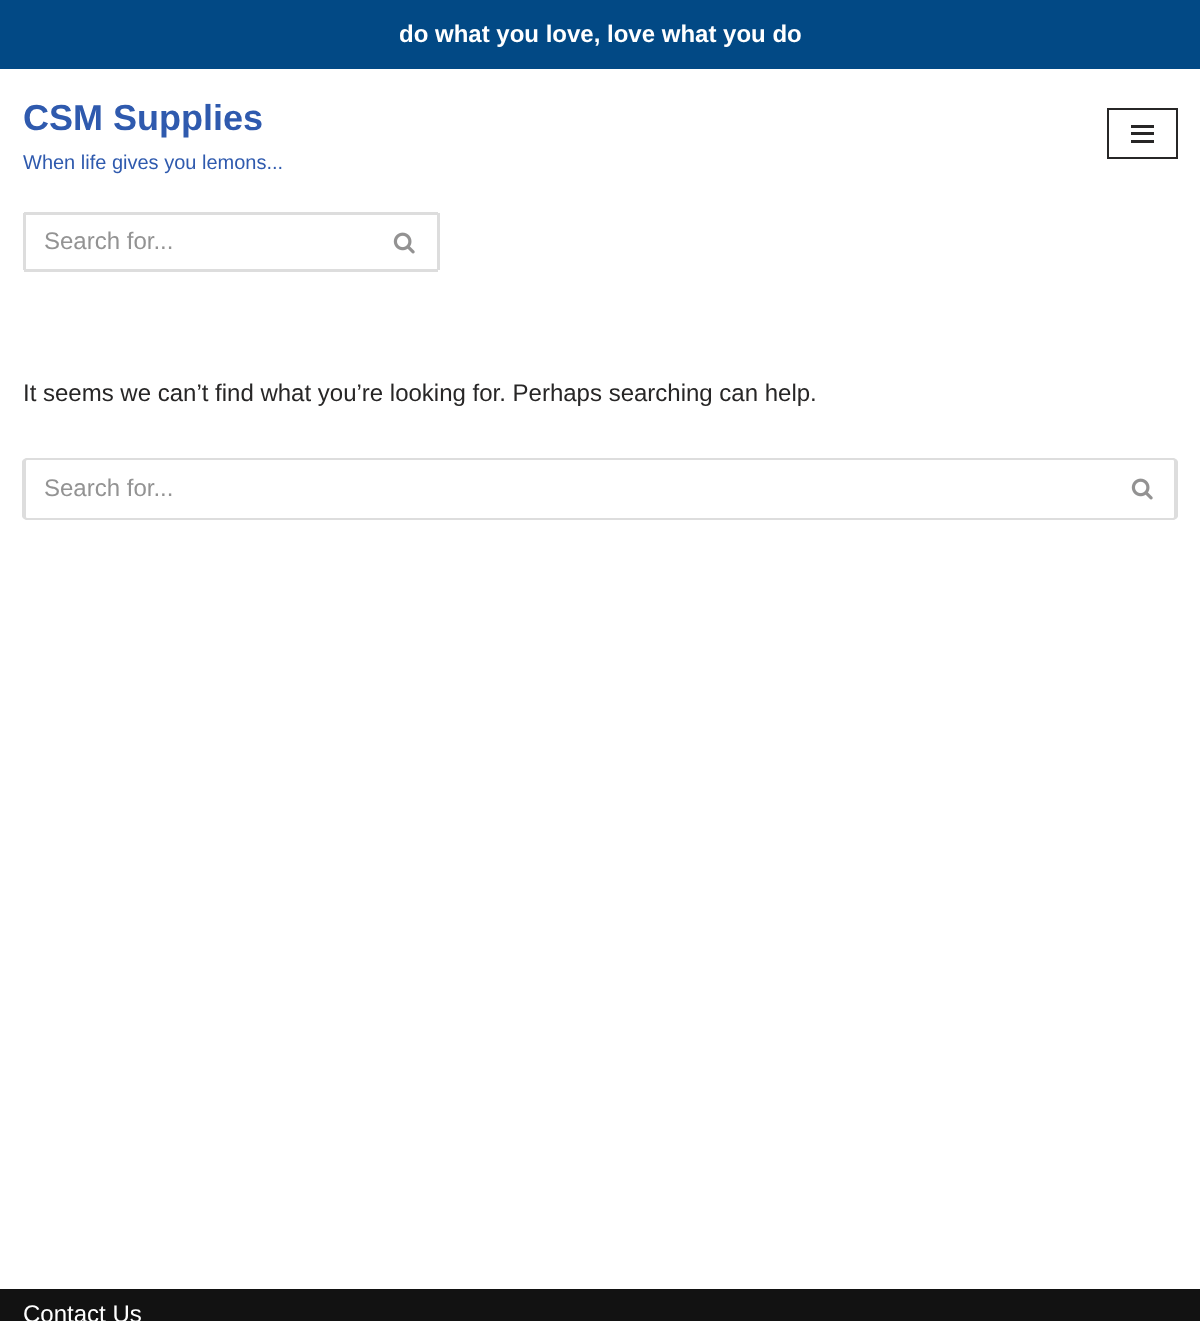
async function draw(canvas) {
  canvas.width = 1200;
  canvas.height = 1321;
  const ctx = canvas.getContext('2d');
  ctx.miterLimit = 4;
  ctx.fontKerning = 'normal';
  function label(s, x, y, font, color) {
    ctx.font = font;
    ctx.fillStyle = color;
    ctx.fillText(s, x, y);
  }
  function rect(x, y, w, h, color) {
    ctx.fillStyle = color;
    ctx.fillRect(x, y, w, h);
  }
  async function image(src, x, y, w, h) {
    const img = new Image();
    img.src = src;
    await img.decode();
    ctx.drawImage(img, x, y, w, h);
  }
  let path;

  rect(0, 0, 1200, 1321, '#fff');
  rect(0, 0, 1200, 69, '#024985');
  label('do what you love, love what you do', 399, 42, 'bold 24px Liberation Sans', '#fff');
  label('CSM Supplies', 23, 130, 'bold 36px Liberation Sans', '#2f5aae');
  label('When life gives you lemons...', 23, 169, '20px Liberation Sans', '#2f5aae');
  ctx.strokeStyle = '#272626';
  ctx.lineWidth = 2;
  ctx.strokeRect(1108, 109, 69, 49);
  rect(1131, 125, 23, 3, '#272626');
  rect(1131, 132, 23, 3, '#272626');
  rect(1131, 140, 23, 3, '#272626');
  rect(24, 212, 414, 3, '#ddd');
  rect(24, 269, 348, 3, '#ddd');
  rect(23, 213, 3, 57, '#ddd');
  label('Search for...', 44, 249, '24px Liberation Sans', '#939393');
  rect(437, 213, 3, 57, '#ddd');
  rect(372, 269, 66, 3, '#ddd');
  await image('assets/img1.png', 393, 232, 22, 22);
  label('It seems we can’t find what you’re looking for. Perhaps searching can help.', 23, 401, '24px Liberation Sans', '#272626');
  ctx.fillStyle = '#ddd';
  path = new Path2D('M27 458H1110V520H27C25 520 22 518 22 516V462C22 460 25 458 27 458ZM27 460H1110V518H27C26 518 26 517 26 516V462C26 461 26 460 27 460Z');
  ctx.fill(path, 'evenodd');
  label('Search for...', 44, 496, '24px Liberation Sans', '#939393');
  ctx.fillStyle = '#ddd';
  path = new Path2D('M1110 458H1173C1175 458 1178 460 1178 462V516C1178 518 1175 520 1173 520H1110ZM1110 460H1173C1174 460 1174 461 1174 462V516C1174 517 1174 518 1173 518H1110Z');
  ctx.fill(path, 'evenodd');
  await image('assets/img1.png', 1131, 478, 22, 22);
  rect(0, 1289, 1200, 32, '#121212');
  label('Contact Us', 23, 1322, '24px Liberation Sans', '#fff');
}

draw(document.querySelector('canvas'));
